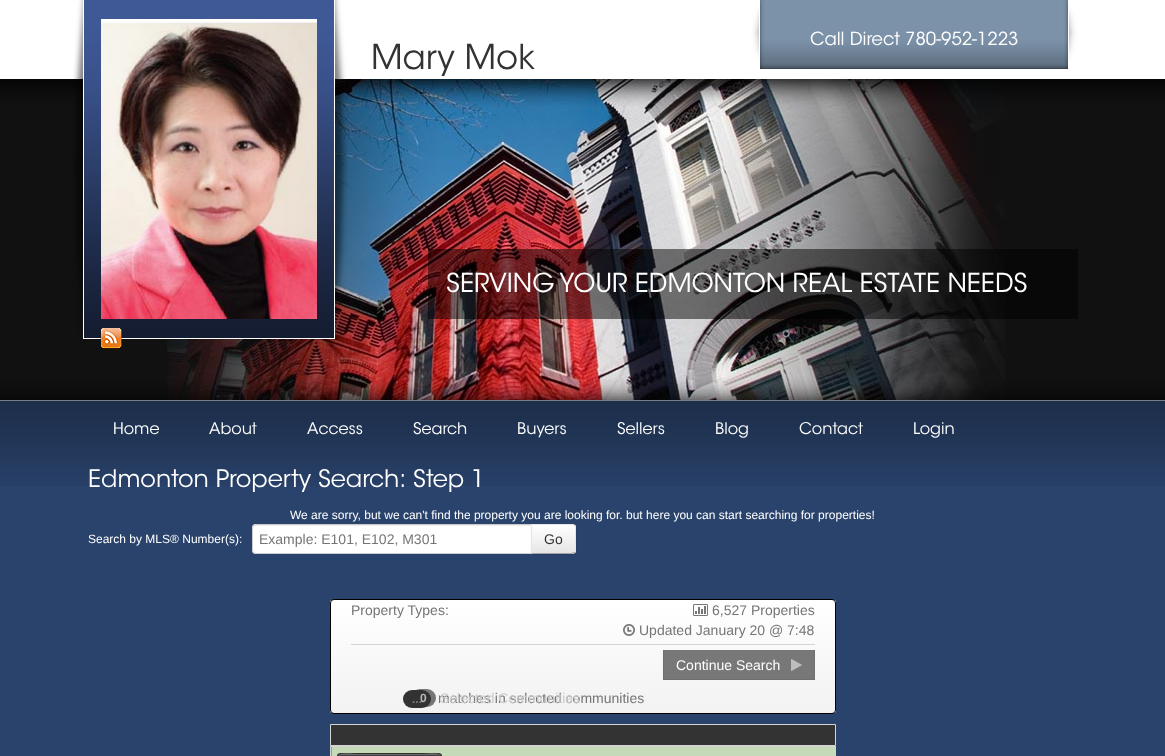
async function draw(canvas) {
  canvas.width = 1165;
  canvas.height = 756;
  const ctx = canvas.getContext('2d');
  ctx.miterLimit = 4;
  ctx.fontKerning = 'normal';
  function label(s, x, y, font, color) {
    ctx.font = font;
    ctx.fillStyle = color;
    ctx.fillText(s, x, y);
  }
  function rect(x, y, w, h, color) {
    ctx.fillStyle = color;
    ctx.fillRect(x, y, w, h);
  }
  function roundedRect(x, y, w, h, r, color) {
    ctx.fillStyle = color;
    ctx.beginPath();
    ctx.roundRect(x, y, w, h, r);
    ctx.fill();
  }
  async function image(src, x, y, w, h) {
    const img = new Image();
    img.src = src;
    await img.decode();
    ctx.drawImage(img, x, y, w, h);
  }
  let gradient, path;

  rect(0, 0, 1165, 756, '#2a436c');
  await image('assets/img1.png', 0, 0, 1165, 486);
  await image('assets/img2.png', 167, 79, 838, 321);
  await image('assets/img3.png', 73, 0, 275, 339);
  rect(84, 0, 250, 338, '#3f5997');
  await image('assets/img4.png', 83, 0, 252, 339);
  await image('assets/img5.png', 101, 19, 216, 300);
  await image('assets/img6.png', 100, 328, 22, 21);
  rect(760, 0, 308, 69, '#7c92a9');
  await image('assets/img7.png', 751, 0, 327, 69);
  label('Call Direct 780-952-1223', 810, 45, '300 18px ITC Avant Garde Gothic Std', '#fff');
  label('Mary Mok', 371, 69, '300 34px ITC Avant Garde Gothic Std', '#333');
  rect(428, 249, 650, 70, '#00000080');
  label('SERVING YOUR EDMONTON REAL ESTATE NEEDS', 446, 292, '300 26px ITC Avant Garde Gothic Std', '#fff');
  label('Home', 113, 434, '300 16px ITC Avant Garde Gothic Std', '#fff');
  label('About', 209, 434, '300 16px ITC Avant Garde Gothic Std', '#fff');
  label('Access', 307, 434, '300 16px ITC Avant Garde Gothic Std', '#fff');
  label('Search', 413, 434, '300 16px ITC Avant Garde Gothic Std', '#fff');
  label('Buyers', 517, 434, '300 16px ITC Avant Garde Gothic Std', '#fff');
  label('Sellers', 617, 434, '300 16px ITC Avant Garde Gothic Std', '#fff');
  label('Blog', 715, 434, '300 16px ITC Avant Garde Gothic Std', '#fff');
  label('Contact', 799, 434, '300 16px ITC Avant Garde Gothic Std', '#fff');
  label('Login', 913, 434, '300 16px ITC Avant Garde Gothic Std', '#fff');
  label('Edmonton Property Search: Step 1', 88, 487, '300 24px ITC Avant Garde Gothic Std', '#fff');
  label('We are sorry, but we can\'t find the property you are looking for. but here you can start searching for properties!', 290, 519, '12px Liberation Sans', '#fff');
  label('Search by MLS® Number(s):', 88, 543, '12px Liberation Sans', '#fff');
  ctx.beginPath();
  ctx.roundRect(252, 524, 284, 30, [4, 0, 0, 4]);
  ctx.fill();
  ctx.fillStyle = '#ececec';
  path = new Path2D('M256 526H535V525H256C254 525 253 526 253 528V529C253 527 254 526 256 526Z');
  ctx.fill(path);
  ctx.beginPath();
  ctx.roundRect(252.5, 524.5, 283, 29, [3.5, 0, 0, 3.5]);
  ctx.strokeStyle = '#ccc';
  ctx.stroke();
  label('Example: E101, E102, M301', 259, 544, '14px Liberation Sans', '#757575');
  ctx.fillStyle = '#0000000d';
  ctx.filter = 'blur(1px)';
  ctx.beginPath();
  ctx.roundRect(531, 525, 45, 30, 4);
  ctx.fill();
  ctx.filter = 'none';
  ctx.fillStyle = '#f5f5f5';
  ctx.beginPath();
  ctx.roundRect(531, 524, 45, 30, [0, 4, 4, 0]);
  ctx.fill();
  ctx.save();
  ctx.beginPath();
  ctx.roundRect(531, 524, 45, 30, [0, 4, 4, 0]);
  ctx.clip();
  gradient = ctx.createLinearGradient(554, 525, 554, 553);
  gradient.addColorStop(0, '#fff');
  gradient.addColorStop(1, '#e6e6e6');
  ctx.fillStyle = gradient;
  ctx.fillRect(532, 525, 44, 28);
  ctx.restore();
  ctx.fillStyle = '#e6e6e6';
  path = new Path2D('M531 524L532 525H565C570 525 573 525 574 526L575 525C573 524 570 524 565 524Z');
  ctx.fill(path);
  path = new Path2D('M576 551L575 553L574 552C575 551.5 575 550.5 575 549.5V539V528.5C575 527.5 575 526.5 574 526L575 525L576 527Z');
  ctx.fill(path);
  ctx.fillStyle = '#a2a2a2';
  path = new Path2D('M565 554C570 554 573 554 575 553L574 552C573 553 570 553 565 553H532L531 554Z');
  ctx.fill(path);
  ctx.fillStyle = '#e6e6e6';
  path = new Path2D('M531 524V554L532 553V525Z');
  ctx.fill(path);
  label('Go', 544, 544, '14px Liberation Sans', '#333');
  ctx.save();
  ctx.beginPath();
  ctx.roundRect(330, 599, 506, 115, 4);
  ctx.clip();
  gradient = ctx.createLinearGradient(583, 600, 583, 713);
  gradient.addColorStop(0, '#fff');
  gradient.addColorStop(1, '#f2f2f2');
  ctx.fillStyle = gradient;
  ctx.fillRect(330, 600, 506, 113);
  ctx.restore();
  gradient = ctx.createLinearGradient(583, 600, 583, 713);
  gradient.addColorStop(0, '#7a7a7a');
  gradient.addColorStop(1, '#767676');
  ctx.fillStyle = gradient;
  ctx.fillRect(663, 650, 152, 30);
  ctx.beginPath();
  ctx.roundRect(330.5, 599.5, 505, 114, 3.5);
  ctx.strokeStyle = '#000';
  ctx.stroke();
  label('Property Types:', 351, 615, '14px Liberation Sans', '#757575');
  await image('assets/img8.png', 693, 604, 15, 12);
  label('6,527 Properties', 712, 615, '14px Liberation Sans', '#757575');
  await image('assets/img9.png', 623, 624, 12, 12);
  label('Updated January 20 @ 7:48', 639, 635, '14px Liberation Sans', '#757575');
  rect(351, 644, 464, 1, '#d4d4d4');
  ctx.fillStyle = '#757575';
  path = new Path2D('M663 650H815L814 651H664Z');
  ctx.fill(path);
  ctx.fillStyle = '#707070';
  path = new Path2D('M815 650V680L814 679V651Z');
  ctx.fill(path);
  ctx.fillStyle = '#56565640';
  path = new Path2D('M815 680H663L664 679H814Z');
  ctx.fill(path);
  ctx.fillStyle = '#00000012';
  path = new Path2D('M663 680V650L664 651V679Z');
  ctx.fill(path);
  label('Continue Search', 676, 670, '14px Liberation Sans', '#fff');
  await image('assets/img10.png', 791, 659, 11, 12);
  roundedRect(403, 690, 28, 18, 9, '#333');
  label('...', 412, 703, 'bold 12px Liberation Sans', '#fff');
  label('matches in selected communities', 438, 703, '14px Liberation Sans', '#757575');
  roundedRect(411, 689, 25, 18, 9, '#333333a6');
  label('0', 420, 702, 'bold 12px Liberation Sans', '#b8b8b8');
  label('Selected Communities', 440, 703, '14px Liberation Sans', '#ccc');
  ctx.fillStyle = '#333';
  ctx.beginPath();
  ctx.rect(330.5, 724.5, 505, 21);
  ctx.fill();
  ctx.strokeStyle = '#d4d4d4';
  ctx.stroke();
  rect(332, 747, 503, 9, '#c5dbb8');
  ctx.strokeRect(330.5, 746.5, 505, 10);
  rect(331, 747, 1, 9, '#999');
  roundedRect(337, 753, 105, 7, 4, '#363636');
  ctx.save();
  ctx.beginPath();
  ctx.roundRect(337, 753, 105, 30, 4);
  ctx.clip();
  gradient = ctx.createLinearGradient(390, 754, 390, 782);
  gradient.addColorStop(0, '#444');
  gradient.addColorStop(1, '#222');
  ctx.fillStyle = gradient;
  ctx.fillRect(337, 754, 105, 2);
  ctx.restore();
  ctx.fillStyle = '#ffffff33';
  path = new Path2D('M341 755H438C440 755 441 756 441 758C441 750 425 754 422 754H357C354 754 338 750 338 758C338 756 339 755 341 755Z');
  ctx.fill(path);
  path = new Path2D('M338.5 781.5C336 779 337.5 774.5 337.5 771.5C337.5 750 334 753.5 357 753.5H422C445 753.5 441.5 750 441.5 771.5C441.5 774.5 443 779 440.5 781.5');
  ctx.strokeStyle = '#0000001a';
  ctx.stroke(path);
}

draw(document.querySelector('canvas'));
